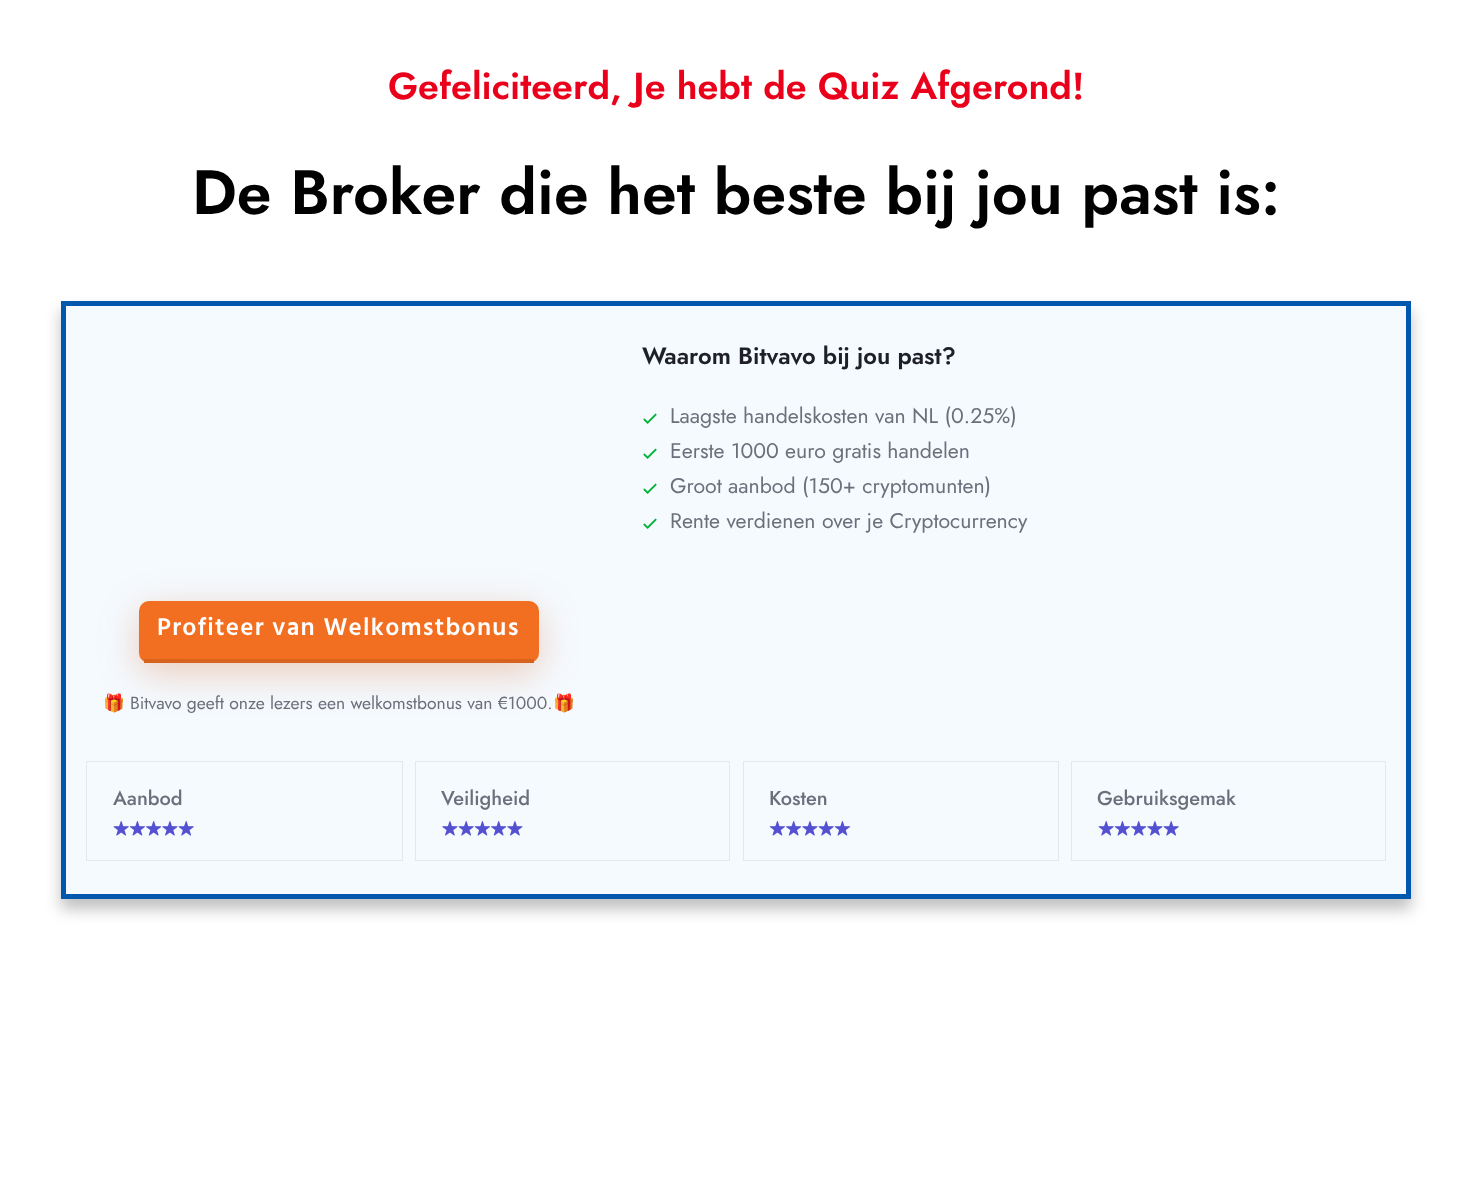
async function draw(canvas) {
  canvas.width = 1472;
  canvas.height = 1186;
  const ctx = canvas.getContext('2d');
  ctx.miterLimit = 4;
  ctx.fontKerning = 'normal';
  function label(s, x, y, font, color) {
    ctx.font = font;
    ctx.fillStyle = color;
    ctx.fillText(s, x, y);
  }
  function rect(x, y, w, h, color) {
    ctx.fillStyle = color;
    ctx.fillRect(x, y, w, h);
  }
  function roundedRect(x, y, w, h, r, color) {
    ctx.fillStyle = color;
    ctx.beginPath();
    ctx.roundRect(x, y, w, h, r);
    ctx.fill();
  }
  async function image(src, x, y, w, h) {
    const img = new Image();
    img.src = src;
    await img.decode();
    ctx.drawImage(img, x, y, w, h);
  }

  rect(0, 0, 1472, 1186, '#fff');
  label('Gefeliciteerd, Je hebt de Quiz Afgerond!', 388, 99, '600 37.5px Jost', '#ea001a');
  label('De Broker die het beste bij jou past is:', 192, 214, '600 62.5px Jost', '#010101');
  ctx.fillStyle = '#00000040';
  ctx.filter = 'blur(7.5px)';
  ctx.beginPath();
  ctx.rect(61, 311, 1350, 598);
  ctx.fill();
  ctx.filter = 'none';
  ctx.fillStyle = '#f5faff';
  ctx.beginPath();
  ctx.rect(63.5, 303.5, 1345, 593);
  ctx.fill();
  ctx.strokeStyle = '#0057ae';
  ctx.lineWidth = 5;
  ctx.stroke();
  label('Waarom Bitvavo bij jou past?', 642, 364, '600 23.75px Jost', '#1e1f27');
  await image('assets/img1.png', 643, 413, 14, 11);
  label('Laagste handelskosten van NL (0.25%)', 670, 423, '21.25px Jost', '#6c6e7a');
  await image('assets/img1.png', 643, 448, 14, 11);
  label('Eerste 1000 euro gratis handelen', 670, 458, '21.25px Jost', '#6c6e7a');
  await image('assets/img1.png', 643, 483, 14, 11);
  label('Groot aanbod (150+ cryptomunten)', 670, 493, '21.25px Jost', '#6c6e7a');
  await image('assets/img1.png', 643, 518, 14, 11);
  label('Rente verdienen over je Cryptocurrency', 670, 528, '21.25px Jost', '#6c6e7a');
  ctx.fillStyle = '#d45f194d';
  ctx.filter = 'blur(19px)';
  ctx.beginPath();
  ctx.roundRect(139, 611, 400, 62, 10);
  ctx.fill();
  ctx.filter = 'none';
  roundedRect(139, 601, 400, 62, 10, '#f26f21');
  rect(144, 659, 390, 4, '#d7631e');
  ctx.letterSpacing = '1.25px';
  label('Profiteer van Welkomstbonus', 157, 635, '600 25px Hind', '#fff');
  ctx.letterSpacing = '0px';
  label('🎁', 103, 709, '17.5px Noto Color Emoji', '#6c6e7a');
  label('Bitvavo geeft onze lezers een welkomstbonus van €1000.', 130, 709, '17.5px Jost', '#6c6e7a');
  label('🎁', 553, 709, '17.5px Noto Color Emoji', '#6c6e7a');
  ctx.strokeStyle = '#e7e7e7';
  ctx.lineWidth = 1;
  ctx.strokeRect(86.5, 761.5, 316, 99);
  label('Aanbod', 113, 805, '500 20px Jost', '#6c6e7a');
  await image('assets/img2.png', 113, 821, 16, 15);
  await image('assets/img3.png', 129, 821, 16, 15);
  await image('assets/img4.png', 146, 821, 15, 15);
  await image('assets/img5.png', 162, 821, 16, 15);
  await image('assets/img2.png', 178, 821, 16, 15);
  ctx.strokeRect(415.5, 761.5, 314, 99);
  label('Veiligheid', 441, 805, '500 20px Jost', '#6c6e7a');
  await image('assets/img5.png', 442, 821, 16, 15);
  await image('assets/img2.png', 458, 821, 16, 15);
  await image('assets/img3.png', 474, 821, 16, 15);
  await image('assets/img4.png', 491, 821, 15, 15);
  await image('assets/img5.png', 507, 821, 16, 15);
  ctx.strokeRect(743.5, 761.5, 315, 99);
  label('Kosten', 769, 805, '500 20px Jost', '#6c6e7a');
  await image('assets/img3.png', 769, 821, 16, 15);
  await image('assets/img4.png', 786, 821, 15, 15);
  await image('assets/img5.png', 802, 821, 16, 15);
  await image('assets/img2.png', 818, 821, 16, 15);
  await image('assets/img3.png', 834, 821, 16, 15);
  ctx.strokeRect(1071.5, 761.5, 314, 99);
  label('Gebruiksgemak', 1097, 805, '500 20px Jost', '#6c6e7a');
  await image('assets/img2.png', 1098, 821, 16, 15);
  await image('assets/img3.png', 1114, 821, 16, 15);
  await image('assets/img4.png', 1131, 821, 15, 15);
  await image('assets/img5.png', 1147, 821, 16, 15);
  await image('assets/img2.png', 1163, 821, 16, 15);
}

draw(document.querySelector('canvas'));
